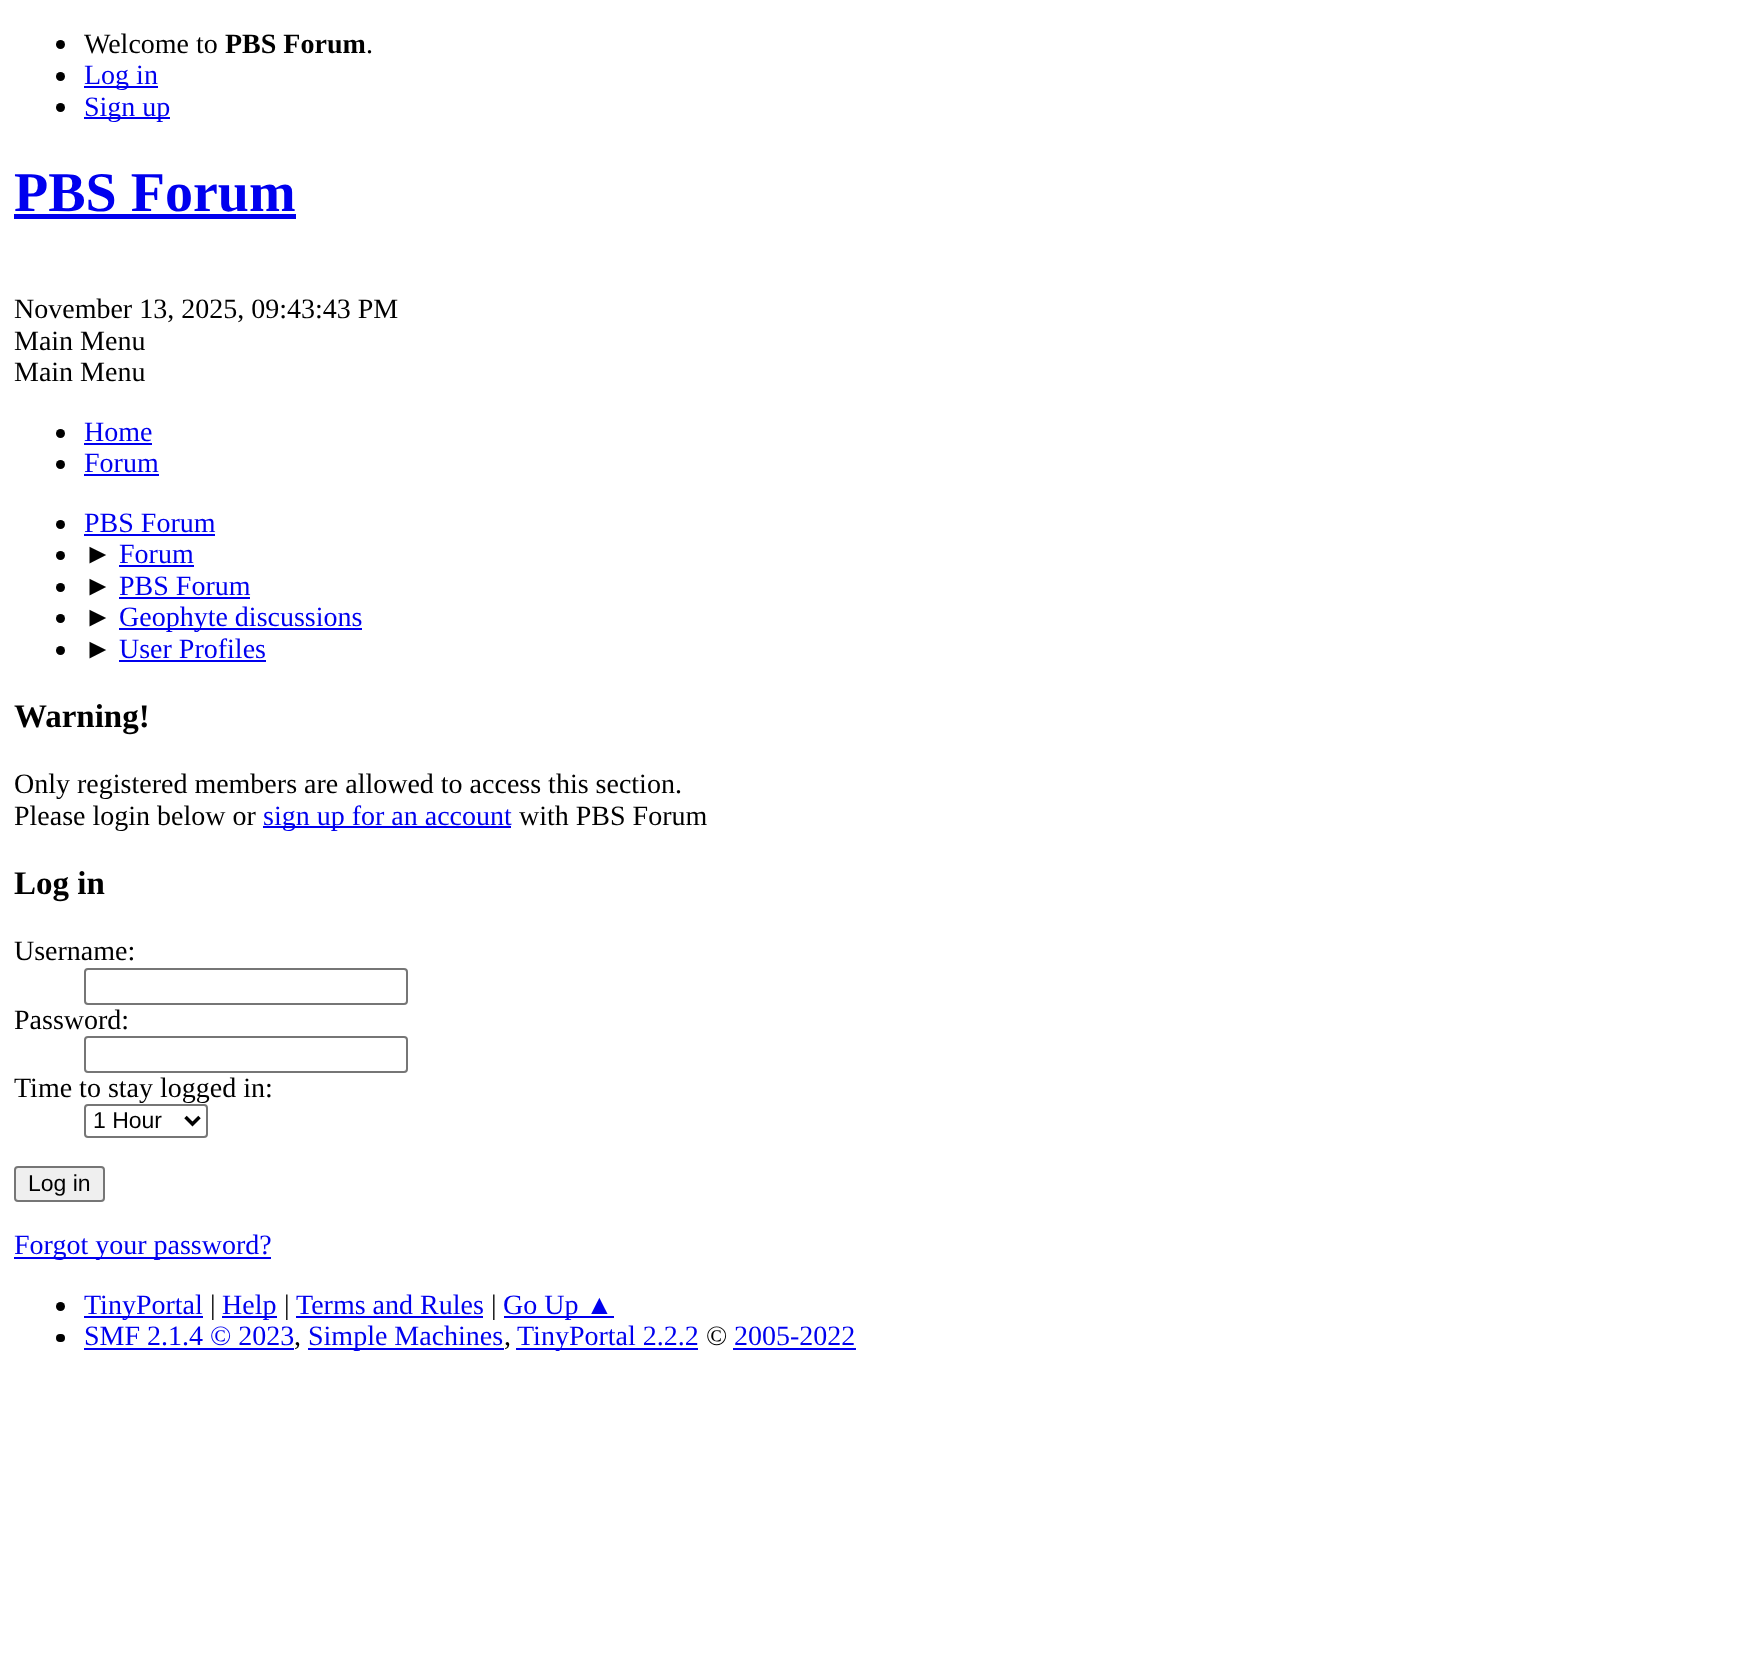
async function draw(canvas) {
  canvas.width = 1747;
  canvas.height = 1654;
  const ctx = canvas.getContext('2d');
  ctx.miterLimit = 4;
  ctx.fontKerning = 'normal';
  function label(s, x, y, font, color) {
    ctx.font = font;
    ctx.fillStyle = color;
    ctx.fillText(s, x, y);
  }
  function rect(x, y, w, h, color) {
    ctx.fillStyle = color;
    ctx.fillRect(x, y, w, h);
  }
  function roundedRect(x, y, w, h, r, color) {
    ctx.fillStyle = color;
    ctx.beginPath();
    ctx.roundRect(x, y, w, h, r);
    ctx.fill();
  }
  let path;

  rect(0, 0, 1747, 1654, '#fff');
  ctx.fillStyle = '#000';
  ctx.beginPath();
  ctx.arc(60.5, 44.5, 4.5, 0, 2 * Math.PI);
  ctx.fill();
  label('Welcome to', 84, 53, '28px Liberation Serif', '#000');
  label('PBS Forum', 225, 53, 'bold 28px Liberation Serif', '#000');
  label('.', 366, 53, '28px Liberation Serif', '#000');
  ctx.beginPath();
  ctx.arc(60.5, 76.5, 4.5, 0, 2 * Math.PI);
  ctx.fill();
  rect(84, 86, 74, 2, '#00e');
  label('Log in', 84, 84, '28px Liberation Serif', '#00e');
  ctx.fillStyle = '#000';
  ctx.beginPath();
  ctx.arc(60.5, 107.5, 4.5, 0, 2 * Math.PI);
  ctx.fill();
  rect(84, 117, 86, 2, '#00e');
  label('Sign up', 84, 116, '28px Liberation Serif', '#00e');
  label('PBS Forum', 14, 211, 'bold 56px Liberation Serif', '#00e');
  rect(14, 214, 282, 5, '#00e');
  label('November 13, 2025, 09:43:43 PM', 14, 318, '28px Liberation Serif', '#000');
  label('Main Menu', 14, 350, '28px Liberation Serif', '#000');
  label('Main Menu', 14, 381, '28px Liberation Serif', '#000');
  ctx.beginPath();
  ctx.arc(60.5, 433.5, 4.5, 0, 2 * Math.PI);
  ctx.fill();
  label('Home', 84, 441, '28px Liberation Serif', '#00e');
  rect(84, 443, 68, 2, '#00e');
  ctx.fillStyle = '#000';
  ctx.beginPath();
  ctx.arc(60.5, 464.5, 4.5, 0, 2 * Math.PI);
  ctx.fill();
  label('Forum', 84, 472, '28px Liberation Serif', '#00e');
  rect(84, 474, 75, 2, '#00e');
  ctx.fillStyle = '#000';
  ctx.beginPath();
  ctx.arc(60.5, 524.5, 4.5, 0, 2 * Math.PI);
  ctx.fill();
  label('PBS Forum', 84, 532, '28px Liberation Serif', '#00e');
  rect(84, 534, 131, 2, '#00e');
  ctx.fillStyle = '#000';
  ctx.beginPath();
  ctx.arc(60.5, 555.5, 4.5, 0, 2 * Math.PI);
  ctx.fill();
  label('►', 84, 563, '28px Liberation Serif', '#000');
  label('Forum', 119, 563, '28px Liberation Serif', '#00e');
  rect(119, 565, 75, 2, '#00e');
  ctx.fillStyle = '#000';
  ctx.beginPath();
  ctx.arc(60.5, 587.5, 4.5, 0, 2 * Math.PI);
  ctx.fill();
  label('►', 84, 595, '28px Liberation Serif', '#000');
  label('PBS Forum', 119, 595, '28px Liberation Serif', '#00e');
  rect(119, 597, 131, 2, '#00e');
  ctx.fillStyle = '#000';
  ctx.beginPath();
  ctx.arc(60.5, 618.5, 4.5, 0, 2 * Math.PI);
  ctx.fill();
  label('►', 84, 626, '28px Liberation Serif', '#000');
  rect(119, 628, 243, 2, '#00e');
  label('Geophyte discussions', 119, 626, '28px Liberation Serif', '#00e');
  ctx.fillStyle = '#000';
  ctx.beginPath();
  ctx.arc(60.5, 650.5, 4.5, 0, 2 * Math.PI);
  ctx.fill();
  label('►', 84, 658, '28px Liberation Serif', '#000');
  label('User Profiles', 119, 658, '28px Liberation Serif', '#00e');
  rect(119, 660, 147, 2, '#00e');
  label('Warning!', 14, 727, 'bold 33px Liberation Serif', '#000');
  label('Only registered members are allowed to access this section.', 14, 793, '28px Liberation Serif', '#000');
  label('Please login below or', 14, 825, '28px Liberation Serif', '#000');
  rect(263, 826, 248, 2, '#00e');
  label('sign up for an account', 263, 825, '28px Liberation Serif', '#00e');
  label('with PBS Forum', 519, 825, '28px Liberation Serif', '#000');
  label('Log in', 14, 894, 'bold 33px Liberation Serif', '#000');
  label('Username:', 14, 960, '28px Liberation Serif', '#000');
  ctx.beginPath();
  ctx.roundRect(85, 969, 322, 35, 3);
  ctx.strokeStyle = '#767676';
  ctx.lineWidth = 2;
  ctx.stroke();
  label('Password:', 14, 1029, '28px Liberation Serif', '#000');
  ctx.beginPath();
  ctx.roundRect(85, 1037, 322, 35, 3);
  ctx.stroke();
  label('Time to stay logged in:', 14, 1097, '28px Liberation Serif', '#000');
  ctx.beginPath();
  ctx.roundRect(85, 1105, 122, 32, 3);
  ctx.stroke();
  path = new Path2D('M185.5 1117L192.5 1124L199.5 1117');
  ctx.strokeStyle = '#000';
  ctx.lineWidth = 3.5;
  ctx.stroke(path);
  label('1 Hour', 93, 1128, '23px Liberation Sans', '#000');
  ctx.fillStyle = '#efefef';
  ctx.beginPath();
  ctx.roundRect(15, 1167, 89, 34, 3);
  ctx.fill();
  ctx.strokeStyle = '#767676';
  ctx.lineWidth = 2;
  ctx.stroke();
  label('Log in', 28, 1191, '23px Liberation Sans', '#000');
  rect(14, 1257, 257, 2, '#00e');
  label('Forgot your password?', 14, 1254, '28px Liberation Serif', '#00e');
  ctx.fillStyle = '#000';
  ctx.beginPath();
  ctx.arc(60.5, 1306.5, 4.5, 0, 2 * Math.PI);
  ctx.fill();
  rect(84, 1316, 119, 2, '#00e');
  label('TinyPortal', 84, 1314, '28px Liberation Serif', '#00e');
  label('|', 210, 1314, '28px Liberation Serif', '#000');
  rect(222, 1316, 55, 2, '#00e');
  label('Help', 222, 1314, '28px Liberation Serif', '#00e');
  label('|', 284, 1314, '28px Liberation Serif', '#000');
  label('Terms and Rules', 296, 1314, '28px Liberation Serif', '#00e');
  rect(296, 1316, 187, 2, '#00e');
  label('|', 491, 1314, '28px Liberation Serif', '#000');
  rect(504, 1316, 110, 2, '#00e');
  label('Go Up ▲', 503, 1314, '28px Liberation Serif', '#00e');
  roundedRect(56, 1334, 9, 8, 4, '#000');
  label('SMF 2.1.4 © 2023', 84, 1345, '28px Liberation Serif', '#00e');
  rect(84, 1348, 210, 2, '#00e');
  rect(308, 1348, 196, 2, '#00e');
  label('Simple Machines', 308, 1345, '28px Liberation Serif', '#00e');
  rect(516, 1348, 182, 2, '#00e');
  label('TinyPortal 2.2.2', 517, 1345, '28px Liberation Serif', '#00e');
  label('©', 706, 1345, '28px Liberation Serif', '#000');
  label('2005-2022', 734, 1345, '28px Liberation Serif', '#00e');
  rect(733, 1348, 123, 2, '#00e');
  label(',', 294, 1345, '28px Liberation Serif', '#000');
  label(',', 504, 1345, '28px Liberation Serif', '#000');
}

draw(document.querySelector('canvas'));
